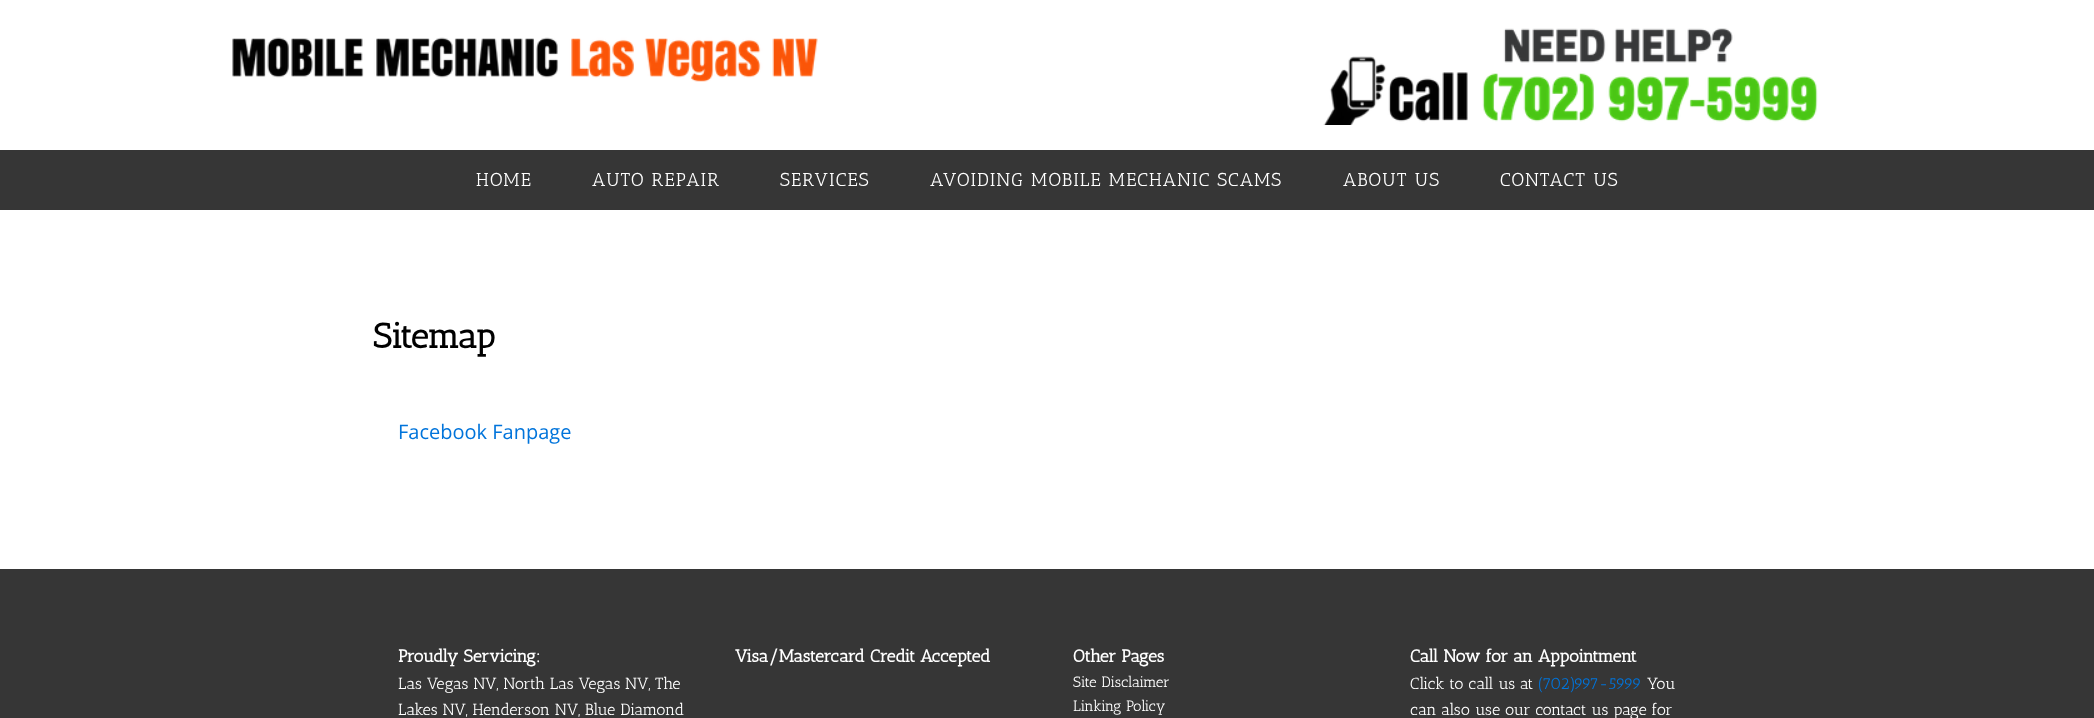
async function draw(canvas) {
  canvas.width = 2094;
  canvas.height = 718;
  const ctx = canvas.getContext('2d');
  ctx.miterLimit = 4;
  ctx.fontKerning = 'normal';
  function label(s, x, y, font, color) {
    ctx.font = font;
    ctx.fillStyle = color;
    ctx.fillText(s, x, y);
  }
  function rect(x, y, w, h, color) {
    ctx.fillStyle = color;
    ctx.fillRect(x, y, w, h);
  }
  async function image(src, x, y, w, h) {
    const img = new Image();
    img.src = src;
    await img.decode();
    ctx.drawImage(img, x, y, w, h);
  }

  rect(0, 0, 2094, 718, '#fff');
  await image('assets/img1.png', 232, 37, 586, 45);
  await image('assets/img2.png', 1323, 28, 495, 97);
  rect(0, 150, 2094, 60, '#363636');
  ctx.letterSpacing = '1.25px';
  label('HOME', 476, 186, '18.75px Antic Slab', '#fff');
  label('AUTO REPAIR', 592, 186, '18.75px Antic Slab', '#fff');
  label('SERVICES', 780, 186, '18.75px Antic Slab', '#fff');
  label('AVOIDING MOBILE MECHANIC SCAMS', 930, 186, '18.75px Antic Slab', '#fff');
  label('ABOUT US', 1343, 186, '18.75px Antic Slab', '#fff');
  label('CONTACT US', 1500, 186, '18.75px Antic Slab', '#fff');
  ctx.letterSpacing = '0px';
  label('Sitemap', 373, 348, 'bold 35px Antic Slab', '#000');
  label('Facebook Fanpage', 398, 439, '20px Open Sans', '#0074db');
  rect(0, 569, 2094, 149, '#363636');
  label('Proudly Servicing:', 398, 662, 'bold 17.5px Antic Slab', '#fff');
  label('Las Vegas NV, North Las Vegas NV, The', 398, 689, '16.25px Antic Slab', '#fff');
  label('Lakes NV, Henderson NV, Blue Diamond', 398, 715, '16.25px Antic Slab', '#fff');
  label('Visa/Mastercard Credit Accepted', 735, 662, 'bold 17.5px Antic Slab', '#fff');
  label('Other Pages', 1073, 662, 'bold 17.5px Antic Slab', '#fff');
  label('Site Disclaimer', 1073, 687, '15px Antic Slab', '#fff');
  label('Linking Policy', 1073, 711, '15px Antic Slab', '#fff');
  label('Call Now for an Appointment', 1410, 662, 'bold 17.5px Antic Slab', '#fff');
  label('Click to call us at', 1410, 689, '16.25px Antic Slab', '#fff');
  label('(702)997-5999', 1538, 689, '16.25px Antic Slab', '#0074db');
  label('You', 1647, 689, '16.25px Antic Slab', '#fff');
  label('can also use our contact us page for', 1410, 715, '16.25px Antic Slab', '#fff');
}

draw(document.querySelector('canvas'));
